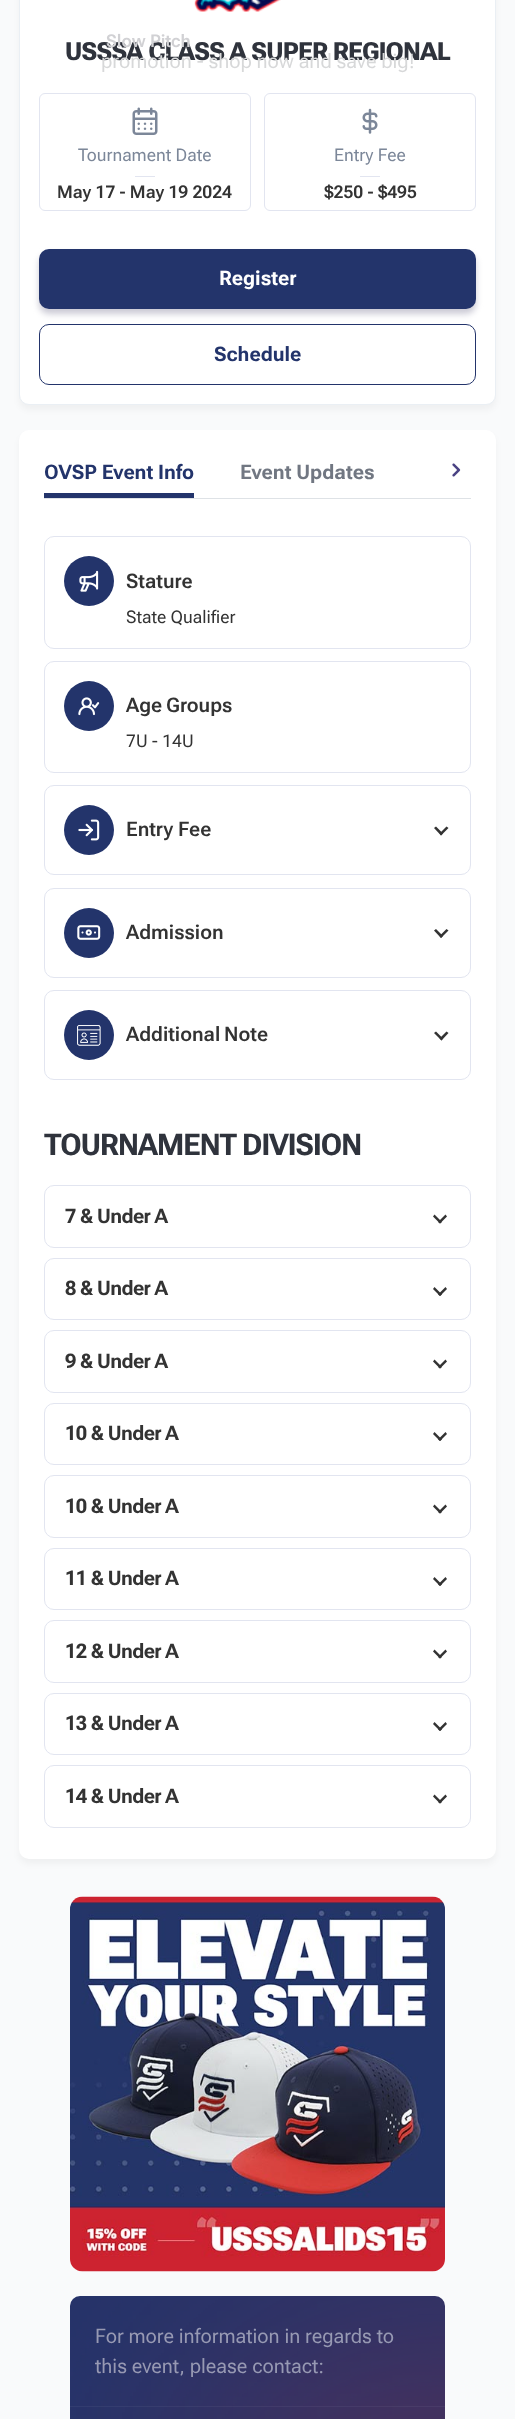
async function draw(canvas) {
  canvas.width = 515;
  canvas.height = 2419;
  const ctx = canvas.getContext('2d');
  ctx.miterLimit = 4;
  ctx.fontKerning = 'normal';
  function label(s, x, y, font, color) {
    ctx.font = font;
    ctx.fillStyle = color;
    ctx.fillText(s, x, y);
  }
  function rect(x, y, w, h, color) {
    ctx.fillStyle = color;
    ctx.fillRect(x, y, w, h);
  }
  function roundedRect(x, y, w, h, r, color) {
    ctx.fillStyle = color;
    ctx.beginPath();
    ctx.roundRect(x, y, w, h, r);
    ctx.fill();
  }
  async function image(src, x, y, w, h) {
    const img = new Image();
    img.src = src;
    await img.decode();
    ctx.drawImage(img, x, y, w, h);
  }
  let path;

  rect(0, 0, 515, 2419, '#f9fafb');
  ctx.fillStyle = '#0000000a';
  ctx.filter = 'blur(3px)';
  ctx.beginPath();
  ctx.roundRect(19, -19, 477, 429, 10);
  ctx.fill();
  ctx.filter = 'none';
  ctx.fillStyle = '#fff';
  ctx.beginPath();
  ctx.roundRect(19.5, -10.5, 476, 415, 9.5);
  ctx.fill();
  ctx.strokeStyle = '#eaeff4';
  ctx.stroke();
  ctx.letterSpacing = '-0.75px';
  label('USSSA CLASS A SUPER REGIONAL', 65, 60, '800 25px Roboto Flex', '#2f333c');
  ctx.letterSpacing = '0px';
  label('Slow Pitch', 106, 47, '600 17.5px Roboto Flex', '#d1d1d4');
  await image('assets/img1.png', 194, 0, 87, 12);
  ctx.beginPath();
  ctx.roundRect(39.5, 93.5, 211, 117, 5.5);
  ctx.strokeStyle = '#e2e5f0';
  ctx.stroke();
  await image('assets/img2.png', 132, 107, 26, 28);
  label('Tournament Date', 78, 161, '17.5px Roboto Flex', '#7c8799');
  rect(135, 176, 20, 1, '#e2e5f0');
  label('May 17 - May 19 2024', 57, 198, '600 17.5px Roboto Flex', '#333');
  ctx.beginPath();
  ctx.roundRect(264.5, 93.5, 211, 117, 5.5);
  ctx.stroke();
  await image('assets/img3.png', 362, 108, 16, 26);
  label('Entry Fee', 334, 161, '17.5px Roboto Flex', '#7c8799');
  rect(360, 176, 20, 1, '#e2e5f0');
  label('$250 - $495', 324, 198, '600 17.5px Roboto Flex', '#333');
  ctx.fillStyle = '#cbcad5';
  ctx.filter = 'blur(3px)';
  ctx.beginPath();
  ctx.roundRect(39, 254, 437, 60, 10);
  ctx.fill();
  ctx.filter = 'none';
  roundedRect(39, 249, 437, 60, 10, '#23346b');
  label('Register', 219, 285, 'bold 20px Roboto Flex', '#fff');
  ctx.beginPath();
  ctx.roundRect(39.5, 324.5, 436, 60, 9.5);
  ctx.strokeStyle = '#23346b';
  ctx.stroke();
  label('Schedule', 214, 361, 'bold 20px Roboto Flex', '#23346b');
  label('promotion - shop now and save big!', 101, 68, '20px "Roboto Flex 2"', '#d7d8d9');
  ctx.fillStyle = '#0000000a';
  ctx.filter = 'blur(3px)';
  ctx.beginPath();
  ctx.roundRect(19, 435, 477, 1429, 10);
  ctx.fill();
  ctx.filter = 'none';
  roundedRect(19, 430, 477, 1429, 10, '#fff');
  rect(44, 498, 427, 1, '#dee2e6');
  label('OVSP Event Info', 44, 479, 'bold 20px Roboto Flex', '#23346b');
  rect(44, 493, 150, 5, '#23346b');
  label('Event Updates', 240, 479, 'bold 20px Roboto Flex', '#717782');
  await image('assets/img4.png', 452, 463, 9, 14);
  ctx.beginPath();
  ctx.roundRect(44.5, 536.5, 426, 112, 9.5);
  ctx.strokeStyle = '#e2e5f0';
  ctx.stroke();
  ctx.fillStyle = '#23346b';
  ctx.beginPath();
  ctx.arc(89, 581, 25, 0, 2 * Math.PI);
  ctx.fill();
  await image('assets/img5.png', 79, 570, 20, 22);
  label('Stature', 126, 588, '600 20px Roboto Flex', '#333');
  label('State Qualifier', 126, 623, '17.5px Roboto Flex', '#333');
  ctx.beginPath();
  ctx.roundRect(44.5, 661.5, 426, 111, 9.5);
  ctx.stroke();
  ctx.fillStyle = '#23346b';
  ctx.beginPath();
  ctx.arc(89, 706, 25, 0, 2 * Math.PI);
  ctx.fill();
  await image('assets/img6.png', 78, 697, 22, 19);
  ctx.wordSpacing = '-1px';
  label('Age Groups', 126, 712, '600 20px Roboto Flex', '#333');
  ctx.wordSpacing = '0px';
  label('7U - 14U', 126, 747, '17.5px Roboto Flex', '#333');
  ctx.beginPath();
  ctx.roundRect(44.5, 785.5, 426, 89, 9.5);
  ctx.stroke();
  ctx.fillStyle = '#23346b';
  ctx.beginPath();
  ctx.arc(89, 830, 25, 0, 2 * Math.PI);
  ctx.fill();
  await image('assets/img7.png', 78, 819, 22, 22);
  label('Entry Fee', 126, 836, '600 20px Roboto Flex', '#333');
  path = new Path2D('M446.5 826.5L448.5 828L441 835.5L439.5 833.5Z');
  ctx.fill(path);
  path = new Path2D('M436 826.5L443 833.5L441 835.5L434 828Z');
  ctx.fill(path);
  ctx.beginPath();
  ctx.roundRect(44.5, 888.5, 426, 89, 9.5);
  ctx.stroke();
  ctx.fillStyle = '#23346b';
  ctx.beginPath();
  ctx.arc(89, 933, 25, 0, 2 * Math.PI);
  ctx.fill();
  await image('assets/img8.png', 77, 925, 24, 15);
  label('Admission', 126, 939, '600 20px Roboto Flex', '#333');
  path = new Path2D('M446.5 929L448.5 930.5L441 938L439.5 936Z');
  ctx.fill(path);
  path = new Path2D('M436 929L443 936L441 938L434 930.5Z');
  ctx.fill(path);
  ctx.beginPath();
  ctx.roundRect(44.5, 990.5, 426, 89, 9.5);
  ctx.stroke();
  ctx.fillStyle = '#23346b';
  ctx.beginPath();
  ctx.arc(89, 1035, 25, 0, 2 * Math.PI);
  ctx.fill();
  await image('assets/img9.png', 77, 1025, 24, 21);
  ctx.wordSpacing = '-1px';
  label('Additional Note', 126, 1041, '600 20px Roboto Flex', '#333');
  path = new Path2D('M446.5 1031.5L448.5 1033L441.5 1040.5L439.5 1038.5Z');
  ctx.fill(path);
  path = new Path2D('M436 1031.5L443 1038.5L441.5 1040.5L434 1033Z');
  ctx.fill(path);
  ctx.letterSpacing = '-0.9px';
  ctx.wordSpacing = '0px';
  label('TOURNAMENT DIVISION', 44, 1155, 'bold 30px "Roboto Flex 2"', '#2f333c');
  ctx.beginPath();
  ctx.roundRect(44.5, 1185.5, 426, 62, 9.5);
  ctx.stroke();
  ctx.letterSpacing = '-0.6px';
  label('7 & Under A', 65, 1223, 'bold 20px Roboto Flex', '#333');
  path = new Path2D('M445.5 1214.5L447 1216.5L440 1223.5L438 1222Z');
  ctx.fill(path);
  path = new Path2D('M434.5 1214.5L442 1222L440 1223.5L433 1216.5Z');
  ctx.fill(path);
  ctx.beginPath();
  ctx.roundRect(44.5, 1258.5, 426, 61, 9.5);
  ctx.stroke();
  label('8 & Under A', 65, 1295, 'bold 20px Roboto Flex', '#333');
  path = new Path2D('M445.5 1287L447 1289L440 1296L438 1294.5Z');
  ctx.fill(path);
  path = new Path2D('M434.5 1287L442 1294.5L440 1296L433 1289Z');
  ctx.fill(path);
  ctx.beginPath();
  ctx.roundRect(44.5, 1330.5, 426, 62, 9.5);
  ctx.stroke();
  label('9 & Under A', 65, 1368, 'bold 20px Roboto Flex', '#333');
  path = new Path2D('M445.5 1359.5L447 1361.5L440 1368.5L438 1367Z');
  ctx.fill(path);
  path = new Path2D('M434.5 1359.5L442 1367L440 1368.5L433 1361.5Z');
  ctx.fill(path);
  ctx.beginPath();
  ctx.roundRect(44.5, 1403.5, 426, 61, 9.5);
  ctx.stroke();
  label('10 & Under A', 65, 1440, 'bold 20px Roboto Flex', '#333');
  path = new Path2D('M445.5 1432L447 1434L440 1441L438 1439.5Z');
  ctx.fill(path);
  path = new Path2D('M434.5 1432L442 1439.5L440 1441L433 1434Z');
  ctx.fill(path);
  ctx.beginPath();
  ctx.roundRect(44.5, 1475.5, 426, 62, 9.5);
  ctx.stroke();
  label('10 & Under A', 65, 1513, 'bold 20px Roboto Flex', '#333');
  path = new Path2D('M445.5 1504.5L447 1506.5L440 1513.5L438 1512Z');
  ctx.fill(path);
  path = new Path2D('M434.5 1504.5L442 1512L440 1513.5L433 1506.5Z');
  ctx.fill(path);
  ctx.beginPath();
  ctx.roundRect(44.5, 1548.5, 426, 61, 9.5);
  ctx.stroke();
  label('11 & Under A', 65, 1585, 'bold 20px Roboto Flex', '#333');
  path = new Path2D('M445.5 1577L447 1579L440 1586L438 1584.5Z');
  ctx.fill(path);
  path = new Path2D('M434.5 1577L442 1584.5L440 1586L433 1579Z');
  ctx.fill(path);
  ctx.beginPath();
  ctx.roundRect(44.5, 1620.5, 426, 62, 9.5);
  ctx.stroke();
  label('12 & Under A', 65, 1658, 'bold 20px Roboto Flex', '#333');
  path = new Path2D('M445.5 1649.5L447 1651.5L440 1658.5L438 1657Z');
  ctx.fill(path);
  path = new Path2D('M434.5 1649.5L442 1657L440 1658.5L433 1651.5Z');
  ctx.fill(path);
  ctx.beginPath();
  ctx.roundRect(44.5, 1693.5, 426, 61, 9.5);
  ctx.stroke();
  label('13 & Under A', 65, 1730, 'bold 20px Roboto Flex', '#333');
  path = new Path2D('M445.5 1722L447 1724L440 1731L438 1729.5Z');
  ctx.fill(path);
  path = new Path2D('M434.5 1722L442 1729.5L440 1731L433 1724Z');
  ctx.fill(path);
  ctx.beginPath();
  ctx.roundRect(44.5, 1765.5, 426, 62, 9.5);
  ctx.stroke();
  label('14 & Under A', 65, 1803, 'bold 20px Roboto Flex', '#333');
  path = new Path2D('M445.5 1794.5L447 1796.5L440 1803.5L438 1802Z');
  ctx.fill(path);
  path = new Path2D('M434.5 1794.5L442 1802L440 1803.5L433 1796.5Z');
  ctx.fill(path);
  await image('assets/img10.png', 70, 1896, 375, 376);
  roundedRect(70, 2296, 375, 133, 10, '#23346b');
  ctx.save();
  ctx.beginPath();
  ctx.roundRect(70, 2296, 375, 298, 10);
  ctx.clip();
  ctx.fillStyle = '#b92732';
  ctx.filter = 'blur(187.5px)';
  ctx.beginPath();
  ctx.rect(308, 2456, 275, 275);
  ctx.fill();
  ctx.filter = 'none';
  ctx.restore();
  rect(70, 2406, 375, 1, '#ffffff0d');
  ctx.letterSpacing = '0px';
  label('For more information in regards to', 95, 2343, '20px "Roboto Flex 2"', '#9799b3');
  label('this event, please contact:', 95, 2373, '20px "Roboto Flex 2"', '#9799b3');
}

draw(document.querySelector('canvas'));
